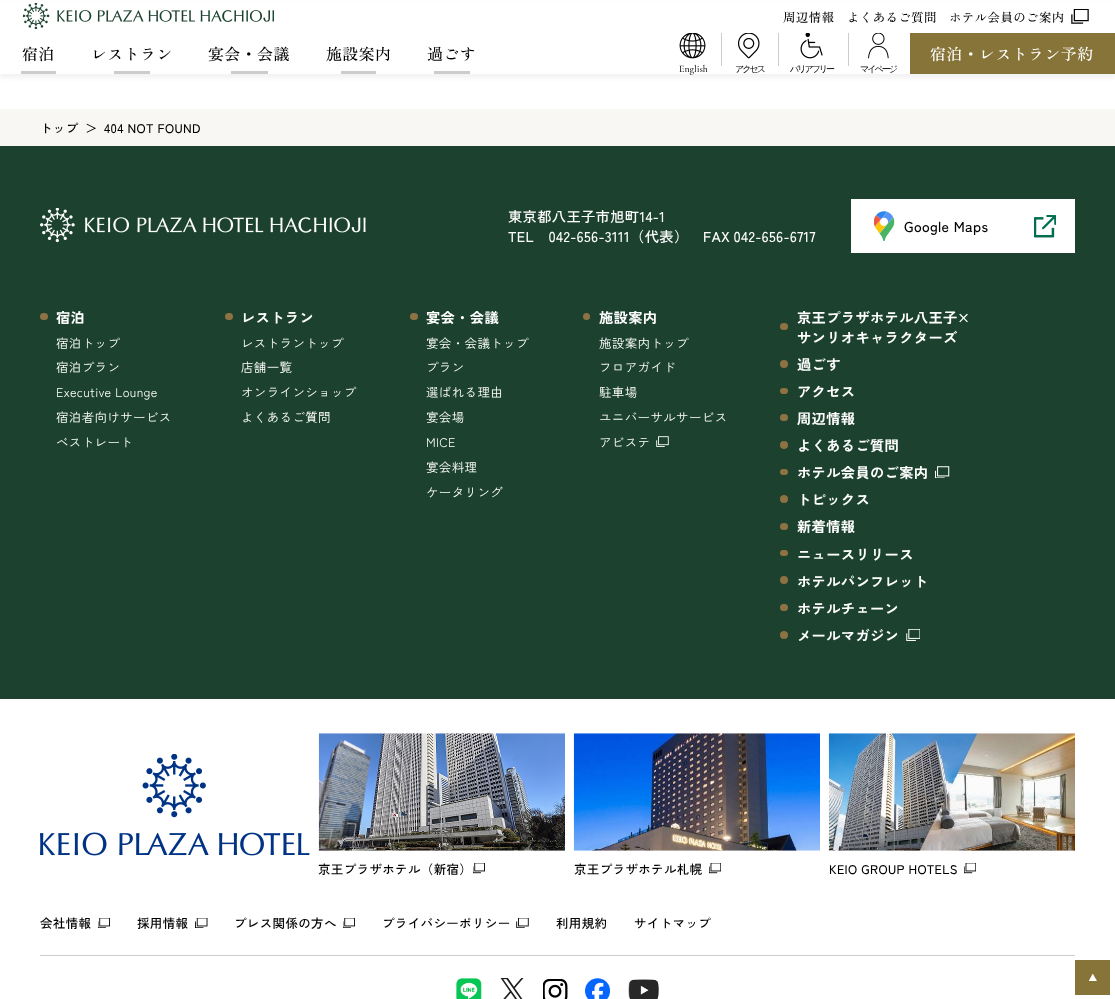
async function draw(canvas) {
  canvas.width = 1115;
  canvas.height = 999;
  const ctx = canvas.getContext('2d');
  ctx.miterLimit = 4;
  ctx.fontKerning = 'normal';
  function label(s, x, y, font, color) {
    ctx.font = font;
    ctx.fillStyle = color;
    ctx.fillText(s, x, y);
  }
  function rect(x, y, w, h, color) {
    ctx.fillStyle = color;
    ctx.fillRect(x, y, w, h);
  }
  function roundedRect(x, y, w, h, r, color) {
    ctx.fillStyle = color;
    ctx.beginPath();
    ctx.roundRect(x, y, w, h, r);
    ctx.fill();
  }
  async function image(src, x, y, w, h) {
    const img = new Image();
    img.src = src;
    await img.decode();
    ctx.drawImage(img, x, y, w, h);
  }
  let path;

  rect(0, 0, 1115, 999, '#fff');
  ctx.fillStyle = '#0000000d';
  ctx.filter = 'blur(2px)';
  ctx.beginPath();
  ctx.rect(0, 4, 1115, 74);
  ctx.fill();
  ctx.filter = 'none';
  rect(0, 2, 1115, 72, '#fff');
  await image('assets/img1.png', 23, 3, 251, 26);
  ctx.letterSpacing = '0.35px';
  label('周辺情報', 783, 22, '500 12.5px Zen Old Mincho', '#000');
  label('よくあるご質問', 847, 22, '500 12.5px Zen Old Mincho', '#000');
  label('ホテル会員のご案内', 949, 22, '500 12.5px Zen Old Mincho', '#000');
  await image('assets/img2.png', 1071, 9, 18, 15);
  label('宿泊', 22, 60, '500 16px Zen Old Mincho', '#000');
  rect(21, 71, 35, 3, '#ccc');
  label('レストラン', 91, 60, '500 16px Zen Old Mincho', '#000');
  rect(114, 71, 36, 3, '#ccc');
  label('宴会・会議', 208, 60, '500 16px Zen Old Mincho', '#000');
  rect(231, 71, 37, 3, '#ccc');
  label('施設案内', 326, 60, '500 16px Zen Old Mincho', '#000');
  rect(341, 71, 35, 3, '#ccc');
  label('過ごす', 427, 60, '500 16px Zen Old Mincho', '#000');
  rect(434, 71, 36, 3, '#ccc');
  rect(910, 33, 205, 41, '#867439');
  label('宿泊・レストラン予約', 930, 60, '500 16px Zen Old Mincho', '#fff');
  await image('assets/img3.png', 679, 33, 27, 26);
  ctx.letterSpacing = '0px';
  label('English', 679, 72, '500 10px Cormorant Garamond', '#000');
  rect(721, 33, 1, 33, '#ccc');
  await image('assets/img4.png', 738, 33, 22, 26);
  ctx.letterSpacing = '-2px';
  label('アクセス', 735, 72, '500 9px WenQuanYi Zen Hei', '#000');
  rect(778, 33, 1, 33, '#ccc');
  await image('assets/img5.png', 800, 33, 23, 26);
  label('バリアフリー', 790, 72, '500 9px WenQuanYi Zen Hei', '#000');
  rect(848, 33, 1, 33, '#ccc');
  await image('assets/img6.png', 868, 33, 21, 26);
  label('マイページ', 860, 72, '500 9px WenQuanYi Zen Hei', '#000');
  rect(0, 109, 1115, 37, '#f8f7f3');
  ctx.letterSpacing = '0.35px';
  label('トップ', 40, 133, '500 12.5px Zen Kaku Gothic New', '#000');
  label('＞', 85, 133, '500 12.5px Zen Kaku Gothic New', '#000');
  label('404 NOT FOUND', 104, 133, '500 12.5px Zen Kaku Gothic New', '#000');
  rect(0, 146, 1115, 553, '#1c422f');
  await image('assets/img7.png', 40, 208, 326, 35);
  label('東京都八王子市旭町14-1', 508, 222, '500 14.25px Zen Kaku Gothic New', '#fff');
  ctx.wordSpacing = '-1px';
  label('TEL　042-656-3111（代表）　FAX 042-656-6717', 508, 242, '500 14.25px Zen Kaku Gothic New', '#fff');
  rect(851, 199, 224, 54, '#fff');
  await image('assets/img8.png', 874, 211, 21, 30);
  ctx.wordSpacing = '0px';
  label('Google Maps', 904, 232, '500 14.25px Zen Kaku Gothic New', '#000');
  await image('assets/img9.png', 1034, 215, 22, 23);
  roundedRect(40, 313, 8, 7, 3.5, '#8e7244');
  label('宿泊', 56, 323, 'bold 14.25px Zen Kaku Gothic New', '#fff');
  label('宿泊トップ', 56, 348, '12.5px Zen Kaku Gothic New', '#fff');
  label('宿泊プラン', 56, 372, '12.5px Zen Kaku Gothic New', '#fff');
  label('Executive Lounge', 56, 397, '12.5px Zen Kaku Gothic New', '#fff');
  label('宿泊者向けサービス', 56, 422, '12.5px Zen Kaku Gothic New', '#fff');
  label('ベストレート', 56, 447, '12.5px Zen Kaku Gothic New', '#fff');
  roundedRect(225, 313, 8, 7, 3.5, '#8e7244');
  label('レストラン', 241, 323, 'bold 14.25px Zen Kaku Gothic New', '#fff');
  label('レストラントップ', 241, 348, '12.5px Zen Kaku Gothic New', '#fff');
  label('店舗一覧', 241, 372, '12.5px Zen Kaku Gothic New', '#fff');
  label('オンラインショップ', 241, 397, '12.5px Zen Kaku Gothic New', '#fff');
  label('よくあるご質問', 241, 422, '12.5px Zen Kaku Gothic New', '#fff');
  roundedRect(410, 313, 8, 7, 3.5, '#8e7244');
  label('宴会・会議', 426, 323, 'bold 14.25px Zen Kaku Gothic New', '#fff');
  label('宴会・会議トップ', 426, 348, '12.5px Zen Kaku Gothic New', '#fff');
  label('プラン', 426, 372, '12.5px Zen Kaku Gothic New', '#fff');
  label('選ばれる理由', 426, 397, '12.5px Zen Kaku Gothic New', '#fff');
  label('宴会場', 426, 422, '12.5px Zen Kaku Gothic New', '#fff');
  label('MICE', 426, 447, '12.5px Zen Kaku Gothic New', '#fff');
  label('宴会料理', 426, 472, '12.5px Zen Kaku Gothic New', '#fff');
  label('ケータリング', 426, 497, '12.5px Zen Kaku Gothic New', '#fff');
  ctx.fillStyle = '#8e7244';
  ctx.beginPath();
  ctx.arc(586.5, 316.5, 3.5, 0, 2 * Math.PI);
  ctx.fill();
  label('施設案内', 599, 323, 'bold 14.25px Zen Kaku Gothic New', '#fff');
  label('施設案内トップ', 599, 348, '12.5px Zen Kaku Gothic New', '#fff');
  label('フロアガイド', 599, 372, '12.5px Zen Kaku Gothic New', '#fff');
  label('駐車場', 599, 397, '12.5px Zen Kaku Gothic New', '#fff');
  label('ユニバーサルサービス', 599, 422, '12.5px Zen Kaku Gothic New', '#fff');
  label('アビステ', 599, 447, '12.5px Zen Kaku Gothic New', '#fff');
  await image('assets/img10.png', 656, 436, 13, 11);
  roundedRect(780, 323, 8, 7, 3.5, '#8e7244');
  label('京王プラザホテル八王子×', 797, 323, 'bold 14.25px Zen Kaku Gothic New', '#fff');
  label('サンリオキャラクターズ', 797, 343, 'bold 14.25px Zen Kaku Gothic New', '#fff');
  ctx.fillStyle = '#8e7244';
  ctx.beginPath();
  ctx.arc(784, 364, 4, 0, 2 * Math.PI);
  ctx.fill();
  label('過ごす', 797, 370, 'bold 14.25px Zen Kaku Gothic New', '#fff');
  roundedRect(780, 388, 8, 6, 3, '#8e7244');
  label('アクセス', 797, 397, 'bold 14.25px Zen Kaku Gothic New', '#fff');
  roundedRect(780, 414, 8, 7, 3.5, '#8e7244');
  label('周辺情報', 797, 424, 'bold 14.25px Zen Kaku Gothic New', '#fff');
  ctx.fillStyle = '#8e7244';
  ctx.beginPath();
  ctx.arc(784, 445, 4, 0, 2 * Math.PI);
  ctx.fill();
  label('よくあるご質問', 797, 451, 'bold 14.25px Zen Kaku Gothic New', '#fff');
  roundedRect(780, 469, 8, 6, 3, '#8e7244');
  label('ホテル会員のご案内', 797, 478, 'bold 14.25px Zen Kaku Gothic New', '#fff');
  await image('assets/img11.png', 935, 466, 15, 12);
  ctx.fillStyle = '#8e7244';
  ctx.beginPath();
  ctx.arc(784, 499, 4, 0, 2 * Math.PI);
  ctx.fill();
  label('トピックス', 797, 505, 'bold 14.25px Zen Kaku Gothic New', '#fff');
  roundedRect(780, 523, 8, 7, 3.5, '#8e7244');
  label('新着情報', 797, 532, 'bold 14.25px Zen Kaku Gothic New', '#fff');
  roundedRect(780, 550, 8, 6, 3, '#8e7244');
  label('ニュースリリース', 797, 560, 'bold 14.25px Zen Kaku Gothic New', '#fff');
  ctx.fillStyle = '#8e7244';
  ctx.beginPath();
  ctx.arc(784, 580, 4, 0, 2 * Math.PI);
  ctx.fill();
  label('ホテルパンフレット', 797, 587, 'bold 14.25px Zen Kaku Gothic New', '#fff');
  roundedRect(780, 604, 8, 7, 3.5, '#8e7244');
  label('ホテルチェーン', 797, 614, 'bold 14.25px Zen Kaku Gothic New', '#fff');
  ctx.fillStyle = '#8e7244';
  ctx.beginPath();
  ctx.arc(784, 635, 4, 0, 2 * Math.PI);
  ctx.fill();
  label('メールマガジン', 797, 641, 'bold 14.25px Zen Kaku Gothic New', '#fff');
  await image('assets/img12.png', 906, 629, 14, 12);
  await image('assets/img13.png', 40, 754, 270, 102);
  await image('assets/img14.png', 318, 733, 247, 118);
  label('京王プラザホテル（新宿）', 318, 874, '500 12.5px Zen Kaku Gothic New', '#000');
  await image('assets/img15.png', 473, 863, 12, 11);
  await image('assets/img16.png', 573, 733, 247, 118);
  label('京王プラザホテル札幌', 574, 874, '500 12.5px Zen Kaku Gothic New', '#000');
  await image('assets/img17.png', 709, 863, 12, 11);
  await image('assets/img18.png', 828, 733, 247, 118);
  label('KEIO GROUP HOTELS', 829, 874, '500 12.5px Zen Kaku Gothic New', '#000');
  await image('assets/img17.png', 964, 863, 12, 11);
  label('会社情報', 40, 928, '500 12.5px Zen Kaku Gothic New', '#000');
  await image('assets/img19.png', 98, 918, 12, 10);
  label('採用情報', 137, 928, '500 12.5px Zen Kaku Gothic New', '#000');
  await image('assets/img20.png', 195, 918, 13, 10);
  label('プレス関係の方へ', 234, 928, '500 12.5px Zen Kaku Gothic New', '#000');
  await image('assets/img19.png', 343, 918, 12, 10);
  label('プライバシーポリシー', 382, 928, '500 12.5px Zen Kaku Gothic New', '#000');
  await image('assets/img21.png', 516, 918, 13, 10);
  label('利用規約', 556, 928, '500 12.5px Zen Kaku Gothic New', '#000');
  label('サイトマップ', 634, 928, '500 12.5px Zen Kaku Gothic New', '#000');
  rect(40, 955, 1035, 1, '#ccc');
  await image('assets/img22.png', 456, 978, 26, 21);
  await image('assets/img23.png', 500, 978, 24, 21);
  await image('assets/img24.png', 543, 979, 25, 20);
  await image('assets/img25.png', 585, 978, 25, 21);
  await image('assets/img26.png', 628, 979, 31, 20);
  rect(1075, 960, 35, 35, '#867439');
  ctx.fillStyle = '#fff';
  path = new Path2D('M1089 980.5L1092.5 974H1093L1097 981H1089Z');
  ctx.fill(path);
}

draw(document.querySelector('canvas'));
